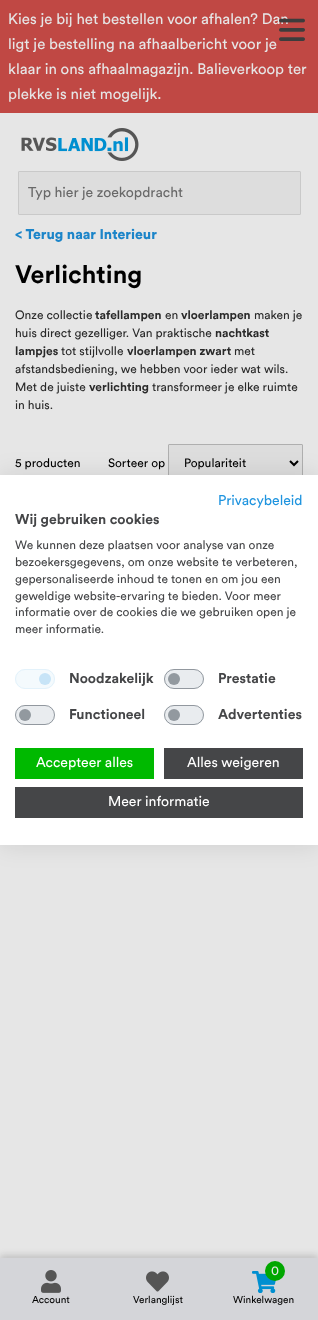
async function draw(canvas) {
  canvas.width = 318;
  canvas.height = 1320;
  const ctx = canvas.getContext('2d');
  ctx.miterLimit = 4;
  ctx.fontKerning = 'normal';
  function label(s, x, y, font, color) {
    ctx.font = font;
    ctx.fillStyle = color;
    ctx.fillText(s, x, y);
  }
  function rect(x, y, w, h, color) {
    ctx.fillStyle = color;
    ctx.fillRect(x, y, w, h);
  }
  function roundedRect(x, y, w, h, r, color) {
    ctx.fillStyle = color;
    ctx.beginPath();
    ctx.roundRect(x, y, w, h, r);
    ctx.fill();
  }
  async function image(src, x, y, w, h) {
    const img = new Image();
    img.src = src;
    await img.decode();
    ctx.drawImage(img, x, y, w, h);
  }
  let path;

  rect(0, 0, 318, 1320, '#e6e6e6');
  rect(0, 0, 318, 113, '#c04844');
  label('Kies je bij het bestellen voor afhalen? Dan', 8, 24, '15px Circular', '#e6e6e6');
  label('ligt je bestelling na afhaalbericht voor je', 8, 49, '15px Circular', '#e6e6e6');
  label('klaar in ons afhaalmagazijn. Balieverkoop ter', 8, 74, '15px Circular', '#e6e6e6');
  label('plekke is niet mogelijk.', 8, 99, '15px Circular', '#e6e6e6');
  await image('assets/img1.png', 21, 128, 118, 33);
  await image('assets/img2.png', 279, 18, 26, 23);
  ctx.fillStyle = '#ddd';
  ctx.beginPath();
  ctx.roundRect(18.5, 171.5, 282, 43, 0.5);
  ctx.fill();
  ctx.strokeStyle = '#c9c9c9';
  ctx.stroke();
  label('Typ hier je zoekopdracht', 28, 197, '14px Circular', '#696969');
  label('< Terug naar Interieur', 15, 239, '900 14px Circular', '#1c85c9');
  label('Verlichting', 15, 283, 'bold 25px Circular', '#000');
  label('Onze collectie', 15, 319, '12px Circular', '#292929');
  label('tafellampen', 95, 319, 'bold 12px Circular', '#292929');
  label('en', 165, 319, '12px Circular', '#292929');
  label('vloerlampen', 181, 319, 'bold 12px Circular', '#292929');
  label('maken je', 254, 319, '12px Circular', '#292929');
  label('huis direct gezelliger. Van praktische', 15, 337, '12px Circular', '#292929');
  label('nachtkast', 215, 337, 'bold 12px Circular', '#292929');
  label('lampjes', 15, 355, 'bold 12px Circular', '#292929');
  label('tot stijlvolle', 61, 355, '12px Circular', '#292929');
  label('vloerlampen zwart', 127, 355, 'bold 12px Circular', '#292929');
  label('met', 234, 355, '12px Circular', '#292929');
  label('afstandsbediening, we hebben voor ieder wat wils.', 15, 373, '12px Circular', '#292929');
  label('Met de juiste', 15, 391, '12px Circular', '#292929');
  label('verlichting', 89, 391, 'bold 12px Circular', '#292929');
  label('transformeer je elke ruimte', 152, 391, '12px Circular', '#292929');
  label('in huis.', 15, 409, '12px Circular', '#292929');
  label('5 producten', 15, 467, '12px Circular', '#000');
  label('Sorteer op', 108, 467, '12px Circular', '#000');
  rect(169, 445, 133, 30, '#ddd');
  ctx.beginPath();
  ctx.roundRect(168.5, 444.5, 134, 36, 0.5);
  ctx.strokeStyle = '#afafaf';
  ctx.stroke();
  path = new Path2D('M290 461L294 465L298 461');
  ctx.strokeStyle = '#000';
  ctx.lineWidth = 2;
  ctx.stroke(path);
  label('Populariteit', 184, 467, '12px Circular', '#000');
  ctx.fillStyle = '#0d0d0d29';
  ctx.filter = 'blur(3px)';
  ctx.beginPath();
  ctx.rect(0, 1255, 318, 62);
  ctx.fill();
  ctx.filter = 'none';
  rect(0, 1258, 318, 62, '#d4d5d9');
  await image('assets/img3.png', 41, 1270, 20, 23);
  label('Account', 32, 1303, '10px Circular', '#000');
  await image('assets/img4.png', 146, 1271, 23, 21);
  label('Verlanglijst', 133, 1303, '10px Circular', '#000');
  await image('assets/img5.png', 252, 1271, 24, 22);
  ctx.fillStyle = '#00a700';
  ctx.beginPath();
  ctx.arc(275, 1271, 10, 0, 2 * Math.PI);
  ctx.fill();
  label('0', 271, 1275, '13px Circular', '#e6e6e6');
  label('Winkelwagen', 233, 1303, '10px Circular', '#000');
  ctx.fillStyle = '#0000001a';
  ctx.filter = 'blur(12px)';
  ctx.beginPath();
  ctx.rect(0, 475, 318, 370);
  ctx.fill();
  ctx.filter = 'none';
  rect(0, 475, 318, 370, '#fff');
  label('Privacybeleid', 218, 505, '14px Circular', '#1f94df');
  label('Wij gebruiken cookies', 15, 524, 'bold 14px Circular', '#454648');
  label('We kunnen deze plaatsen voor analyse van onze', 15, 549, '12px Circular', '#454648');
  label('bezoekersgegevens, om onze website te verbeteren,', 15, 566, '12px Circular', '#454648');
  label('gepersonaliseerde inhoud te tonen en om jou een', 15, 583, '12px Circular', '#454648');
  label('geweldige website-ervaring te bieden. Voor meer', 15, 600, '12px Circular', '#454648');
  label('informatie over de cookies die we gebruiken open je', 15, 616, '12px Circular', '#454648');
  label('meer informatie.', 15, 633, '12px Circular', '#454648');
  roundedRect(15, 669, 40, 20, 10, '#f4fafd');
  ctx.fillStyle = '#c7e4f7';
  ctx.beginPath();
  ctx.arc(45, 679, 6, 0, 2 * Math.PI);
  ctx.fill();
  ctx.beginPath();
  ctx.roundRect(15.5, 669.5, 39, 19, 9.5);
  ctx.strokeStyle = '#e3f2fb';
  ctx.lineWidth = 1;
  ctx.stroke();
  label('Noodzakelijk', 69, 683, 'bold 14px Circular', '#454648');
  roundedRect(164, 669, 40, 20, 10, '#e9ecef');
  ctx.fillStyle = '#92999f';
  ctx.beginPath();
  ctx.arc(174, 679, 6, 0, 2 * Math.PI);
  ctx.fill();
  ctx.beginPath();
  ctx.roundRect(164.5, 669.5, 39, 19, 9.5);
  ctx.strokeStyle = '#6c757db3';
  ctx.stroke();
  label('Prestatie', 218, 683, 'bold 14px Circular', '#454648');
  roundedRect(15, 705, 40, 20, 10, '#e9ecef');
  ctx.fillStyle = '#92999f';
  ctx.beginPath();
  ctx.arc(25, 715, 6, 0, 2 * Math.PI);
  ctx.fill();
  ctx.beginPath();
  ctx.roundRect(15.5, 705.5, 39, 19, 9.5);
  ctx.stroke();
  label('Functioneel', 69, 719, 'bold 14px Circular', '#454648');
  roundedRect(164, 705, 40, 20, 10, '#e9ecef');
  ctx.fillStyle = '#92999f';
  ctx.beginPath();
  ctx.arc(174, 715, 6, 0, 2 * Math.PI);
  ctx.fill();
  ctx.beginPath();
  ctx.roundRect(164.5, 705.5, 39, 19, 9.5);
  ctx.stroke();
  label('Advertenties', 218, 719, 'bold 14px Circular', '#454648');
  rect(15, 748, 139, 31, '#00b900');
  label('Accepteer alles', 36, 767, '14px Circular', '#fff');
  rect(164, 748, 139, 31, '#454648');
  label('Alles weigeren', 187, 767, '14px Circular', '#fff');
  rect(15, 787, 288, 31, '#454648');
  label('Meer informatie', 108, 806, '14px Circular', '#fff');
}

draw(document.querySelector('canvas'));
